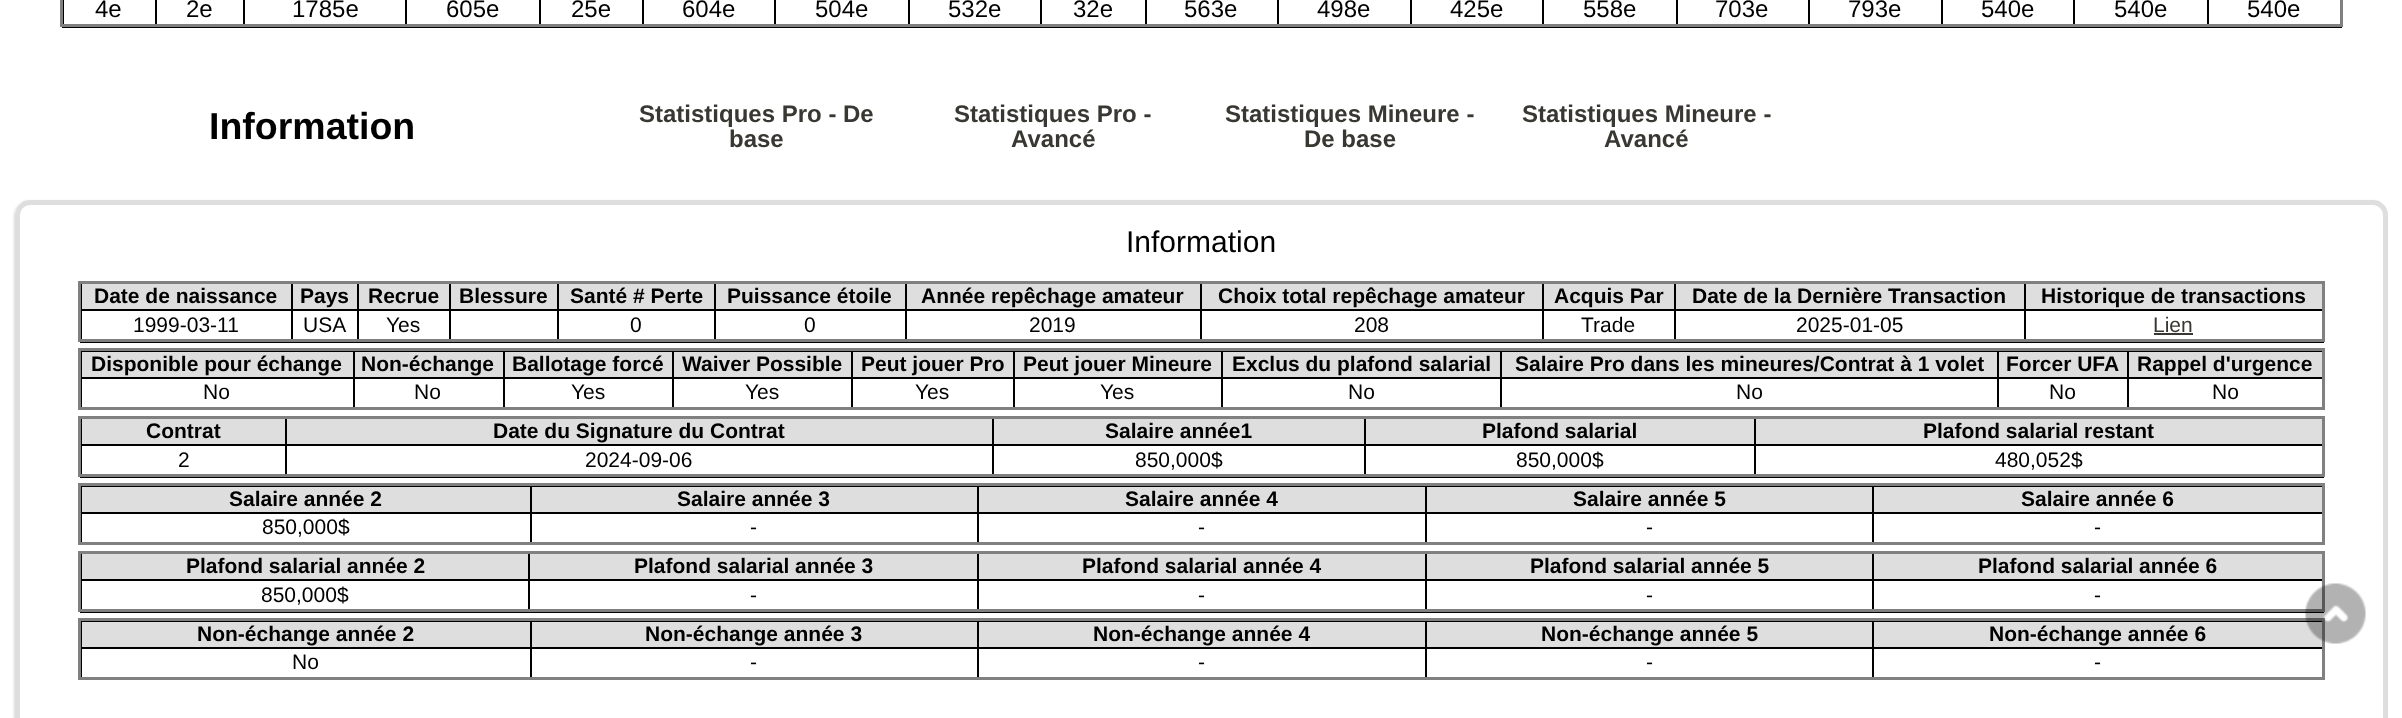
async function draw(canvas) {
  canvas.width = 2402;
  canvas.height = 718;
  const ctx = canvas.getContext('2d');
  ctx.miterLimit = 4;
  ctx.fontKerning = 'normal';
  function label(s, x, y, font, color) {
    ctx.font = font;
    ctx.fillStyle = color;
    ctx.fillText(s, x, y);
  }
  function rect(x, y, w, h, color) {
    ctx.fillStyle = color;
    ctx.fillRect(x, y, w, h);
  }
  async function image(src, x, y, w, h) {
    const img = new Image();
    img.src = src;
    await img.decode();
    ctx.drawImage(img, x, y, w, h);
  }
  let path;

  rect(0, 0, 2402, 718, '#fff');
  rect(2340, 0, 3, 27, '#808080');
  rect(63, 0, 1, 27, '#000');
  rect(155, 0, 2, 27, '#000');
  rect(243, 0, 2, 27, '#000');
  rect(405, 0, 2, 27, '#000');
  rect(539, 0, 2, 27, '#000');
  rect(642, 0, 2, 27, '#000');
  rect(774, 0, 2, 27, '#000');
  rect(908, 0, 2, 27, '#000');
  rect(1040, 0, 2, 27, '#000');
  rect(1145, 0, 2, 27, '#000');
  rect(1277, 0, 2, 27, '#000');
  rect(1410, 0, 2, 27, '#000');
  rect(1542, 0, 2, 27, '#000');
  rect(1676, 0, 2, 27, '#000');
  rect(1808, 0, 2, 27, '#000');
  rect(1941, 0, 2, 27, '#000');
  rect(2073, 0, 2, 27, '#000');
  rect(2207, 0, 2, 27, '#000');
  rect(60, 24, 2283, 3, '#808080');
  rect(60, 0, 3, 27, '#808080');
  label('4e', 95, 17, '24px Liberation Sans', '#000');
  label('2e', 186, 17, '24px Liberation Sans', '#000');
  label('1785e', 292, 17, '24px Liberation Sans', '#000');
  label('605e', 446, 17, '24px Liberation Sans', '#000');
  label('25e', 571, 17, '24px Liberation Sans', '#000');
  label('604e', 682, 17, '24px Liberation Sans', '#000');
  label('504e', 815, 17, '24px Liberation Sans', '#000');
  label('532e', 948, 17, '24px Liberation Sans', '#000');
  label('32e', 1073, 17, '24px Liberation Sans', '#000');
  label('563e', 1184, 17, '24px Liberation Sans', '#000');
  label('498e', 1317, 17, '24px Liberation Sans', '#000');
  label('425e', 1450, 17, '24px Liberation Sans', '#000');
  label('558e', 1583, 17, '24px Liberation Sans', '#000');
  label('703e', 1715, 17, '24px Liberation Sans', '#000');
  label('793e', 1848, 17, '24px Liberation Sans', '#000');
  label('540e', 1981, 17, '24px Liberation Sans', '#000');
  label('540e', 2114, 17, '24px Liberation Sans', '#000');
  rect(62, 27, 2280, 1, '#000');
  label('540e', 2247, 17, '24px Liberation Sans', '#000');
  label('Information', 209, 139, 'bold 37.5px Liberation Sans', '#000');
  label('Statistiques Pro - De', 639, 122, 'bold 24px Liberation Sans', '#383732');
  label('base', 729, 147, 'bold 24px Liberation Sans', '#383732');
  label('Statistiques Pro -', 954, 122, 'bold 24px Liberation Sans', '#383732');
  label('Avancé', 1011, 147, 'bold 24px Liberation Sans', '#383732');
  label('Statistiques Mineure -', 1225, 122, 'bold 24px Liberation Sans', '#383732');
  label('De base', 1304, 147, 'bold 24px Liberation Sans', '#383732');
  label('Statistiques Mineure -', 1522, 122, 'bold 24px Liberation Sans', '#383732');
  label('Avancé', 1604, 147, 'bold 24px Liberation Sans', '#383732');
  ctx.save();
  path = new Path2D('M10 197H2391V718H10ZM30 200H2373C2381.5 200 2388 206.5 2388 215V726C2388 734.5 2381.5 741 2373 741H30C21.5 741 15 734.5 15 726V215C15 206.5 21.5 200 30 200Z');
  ctx.clip(path, 'evenodd');
  ctx.fillStyle = '#00000026';
  ctx.filter = 'blur(1px)';
  ctx.beginPath();
  ctx.roundRect(14, 201, 2373, 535, 15);
  ctx.fill();
  ctx.filter = 'none';
  ctx.restore();
  ctx.beginPath();
  ctx.roundRect(17.5, 202.5, 2368, 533, 12.5);
  ctx.strokeStyle = '#dedede';
  ctx.lineWidth = 5;
  ctx.stroke();
  label('Information', 1126, 252, '30px Liberation Sans', '#000');
  rect(2024, 309, 300, 2, '#000');
  rect(2024, 309, 2, 33, '#000');
  rect(1674, 309, 351, 2, '#000');
  rect(1674, 309, 2, 33, '#000');
  rect(1542, 309, 134, 2, '#000');
  rect(1542, 309, 2, 33, '#000');
  rect(1200, 309, 344, 2, '#000');
  rect(1200, 309, 2, 33, '#000');
  rect(905, 309, 297, 2, '#000');
  rect(905, 309, 2, 33, '#000');
  rect(714, 309, 192, 2, '#000');
  rect(714, 309, 2, 33, '#000');
  rect(557, 309, 159, 2, '#000');
  rect(557, 309, 2, 33, '#000');
  rect(449, 309, 109, 2, '#000');
  rect(449, 309, 2, 33, '#000');
  rect(357, 309, 93, 2, '#000');
  rect(357, 309, 2, 33, '#000');
  rect(291, 309, 68, 2, '#000');
  rect(291, 309, 2, 33, '#000');
  rect(80, 309, 213, 2, '#000');
  rect(291, 282, 2, 29, '#000');
  rect(357, 282, 2, 29, '#000');
  rect(449, 282, 2, 29, '#000');
  rect(557, 282, 2, 29, '#000');
  rect(714, 282, 2, 29, '#000');
  rect(905, 282, 2, 29, '#000');
  rect(1200, 282, 2, 29, '#000');
  rect(1542, 282, 2, 29, '#000');
  rect(1674, 282, 2, 29, '#000');
  rect(2024, 282, 2, 29, '#000');
  rect(81, 282, 1, 60, '#000');
  rect(78, 281, 2247, 3, '#808080');
  rect(2322, 281, 3, 61, '#808080');
  rect(78, 339, 2247, 3, '#808080');
  rect(78, 281, 3, 61, '#808080');
  rect(82, 284, 209, 25, '#dedede');
  label('Date de naissance', 94, 303, 'bold 21px Liberation Sans', '#000');
  rect(293, 284, 64, 25, '#dedede');
  label('Pays', 300, 303, 'bold 21px Liberation Sans', '#000');
  rect(359, 284, 90, 25, '#dedede');
  label('Recrue', 368, 303, 'bold 21px Liberation Sans', '#000');
  rect(451, 284, 106, 25, '#dedede');
  label('Blessure', 459, 303, 'bold 21px Liberation Sans', '#000');
  rect(559, 284, 155, 25, '#dedede');
  label('Santé # Perte', 570, 303, 'bold 21px Liberation Sans', '#000');
  rect(716, 284, 189, 25, '#dedede');
  label('Puissance étoile', 727, 303, 'bold 21px Liberation Sans', '#000');
  rect(907, 284, 293, 25, '#dedede');
  label('Année repêchage amateur', 921, 303, 'bold 21px Liberation Sans', '#000');
  rect(1202, 284, 340, 25, '#dedede');
  label('Choix total repêchage amateur', 1218, 303, 'bold 21px Liberation Sans', '#000');
  rect(1544, 284, 130, 25, '#dedede');
  label('Acquis Par', 1554, 303, 'bold 21px Liberation Sans', '#000');
  rect(1676, 284, 348, 25, '#dedede');
  label('Date de la Dernière Transaction', 1692, 303, 'bold 21px Liberation Sans', '#000');
  rect(2026, 284, 296, 25, '#dedede');
  label('Historique de transactions', 2041, 303, 'bold 21px Liberation Sans', '#000');
  label('1999-03-11', 133, 332, '21px Liberation Sans', '#000');
  label('USA', 303, 332, '21px Liberation Sans', '#000');
  label('Yes', 386, 332, '21px Liberation Sans', '#000');
  label('0', 630, 332, '21px Liberation Sans', '#000');
  label('0', 804, 332, '21px Liberation Sans', '#000');
  label('2019', 1029, 332, '21px Liberation Sans', '#000');
  label('208', 1354, 332, '21px Liberation Sans', '#000');
  label('Trade', 1581, 332, '21px Liberation Sans', '#000');
  label('2025-01-05', 1796, 332, '21px Liberation Sans', '#000');
  rect(80, 342, 2244, 1, '#000');
  label('Lien', 2153, 332, '21px Liberation Sans', '#383732');
  rect(2154, 333, 39, 2, '#383732');
  rect(2127, 351, 197, 1, '#000');
  rect(2127, 377, 197, 2, '#000');
  rect(2127, 377, 2, 33, '#000');
  rect(1997, 377, 132, 2, '#000');
  rect(2127, 350, 2, 28, '#000');
  rect(1997, 351, 132, 1, '#000');
  rect(1997, 377, 2, 33, '#000');
  rect(1500, 377, 498, 2, '#000');
  rect(1997, 350, 2, 28, '#000');
  rect(1500, 351, 498, 1, '#000');
  rect(1500, 377, 2, 33, '#000');
  rect(1221, 377, 281, 2, '#000');
  rect(1500, 350, 2, 28, '#000');
  rect(1221, 351, 281, 1, '#000');
  rect(1221, 377, 2, 33, '#000');
  rect(1013, 377, 210, 2, '#000');
  rect(1221, 350, 2, 28, '#000');
  rect(1013, 351, 210, 1, '#000');
  rect(1013, 377, 2, 33, '#000');
  rect(851, 377, 163, 2, '#000');
  rect(1013, 350, 2, 28, '#000');
  rect(851, 351, 163, 1, '#000');
  rect(851, 377, 2, 33, '#000');
  rect(672, 377, 180, 2, '#000');
  rect(851, 350, 2, 28, '#000');
  rect(672, 351, 180, 1, '#000');
  rect(672, 377, 2, 33, '#000');
  rect(503, 377, 171, 2, '#000');
  rect(672, 350, 2, 28, '#000');
  rect(503, 351, 171, 1, '#000');
  rect(503, 377, 2, 33, '#000');
  rect(353, 377, 151, 2, '#000');
  rect(503, 350, 2, 28, '#000');
  rect(353, 351, 151, 1, '#000');
  rect(353, 377, 2, 33, '#000');
  rect(80, 377, 274, 2, '#000');
  rect(353, 350, 2, 28, '#000');
  rect(80, 351, 274, 1, '#000');
  rect(81, 377, 1, 33, '#000');
  rect(81, 350, 1, 28, '#000');
  rect(78, 348, 2247, 3, '#808080');
  rect(2322, 348, 3, 62, '#808080');
  rect(78, 407, 2247, 3, '#808080');
  rect(78, 348, 3, 62, '#808080');
  rect(82, 352, 271, 25, '#dedede');
  label('Disponible pour échange', 91, 371, 'bold 21px Liberation Sans', '#000');
  rect(355, 352, 148, 25, '#dedede');
  label('Non-échange', 361, 371, 'bold 21px Liberation Sans', '#000');
  rect(505, 352, 167, 25, '#dedede');
  label('Ballotage forcé', 512, 371, 'bold 21px Liberation Sans', '#000');
  rect(674, 352, 177, 25, '#dedede');
  label('Waiver Possible', 682, 371, 'bold 21px Liberation Sans', '#000');
  rect(853, 352, 160, 25, '#dedede');
  label('Peut jouer Pro', 861, 371, 'bold 21px Liberation Sans', '#000');
  rect(1015, 352, 206, 25, '#dedede');
  label('Peut jouer Mineure', 1023, 371, 'bold 21px Liberation Sans', '#000');
  rect(1223, 352, 277, 25, '#dedede');
  label('Exclus du plafond salarial', 1232, 371, 'bold 21px Liberation Sans', '#000');
  rect(1502, 352, 495, 25, '#dedede');
  label('Salaire Pro dans les mineures/Contrat à 1 volet', 1515, 371, 'bold 21px Liberation Sans', '#000');
  rect(1999, 352, 128, 25, '#dedede');
  label('Forcer UFA', 2006, 371, 'bold 21px Liberation Sans', '#000');
  rect(2129, 352, 193, 25, '#dedede');
  label('Rappel d\'urgence', 2137, 371, 'bold 21px Liberation Sans', '#000');
  label('No', 203, 399, '21px Liberation Sans', '#000');
  label('No', 414, 399, '21px Liberation Sans', '#000');
  label('Yes', 571, 399, '21px Liberation Sans', '#000');
  label('Yes', 745, 399, '21px Liberation Sans', '#000');
  label('Yes', 915, 399, '21px Liberation Sans', '#000');
  label('Yes', 1100, 399, '21px Liberation Sans', '#000');
  label('No', 1348, 399, '21px Liberation Sans', '#000');
  label('No', 1736, 399, '21px Liberation Sans', '#000');
  label('No', 2049, 399, '21px Liberation Sans', '#000');
  label('No', 2212, 399, '21px Liberation Sans', '#000');
  rect(1754, 444, 570, 2, '#000');
  rect(1754, 444, 2, 33, '#000');
  rect(1364, 444, 391, 2, '#000');
  rect(1364, 444, 2, 33, '#000');
  rect(992, 444, 373, 2, '#000');
  rect(992, 444, 2, 33, '#000');
  rect(285, 444, 708, 2, '#000');
  rect(285, 444, 2, 33, '#000');
  rect(80, 444, 207, 2, '#000');
  rect(285, 417, 2, 29, '#000');
  rect(992, 417, 2, 29, '#000');
  rect(1364, 417, 2, 29, '#000');
  rect(1754, 417, 2, 29, '#000');
  rect(81, 417, 1, 60, '#000');
  rect(78, 416, 2247, 3, '#808080');
  rect(2322, 416, 3, 61, '#808080');
  rect(78, 474, 2247, 3, '#808080');
  rect(78, 416, 3, 61, '#808080');
  rect(82, 419, 203, 25, '#dedede');
  label('Contrat', 146, 438, 'bold 21px Liberation Sans', '#000');
  rect(287, 419, 705, 25, '#dedede');
  label('Date du Signature du Contrat', 493, 438, 'bold 21px Liberation Sans', '#000');
  rect(994, 419, 370, 25, '#dedede');
  label('Salaire année1', 1105, 438, 'bold 21px Liberation Sans', '#000');
  rect(1366, 419, 388, 25, '#dedede');
  label('Plafond salarial', 1482, 438, 'bold 21px Liberation Sans', '#000');
  rect(1756, 419, 566, 25, '#dedede');
  label('Plafond salarial restant', 1923, 438, 'bold 21px Liberation Sans', '#000');
  label('2', 178, 467, '21px Liberation Sans', '#000');
  label('2024-09-06', 585, 467, '21px Liberation Sans', '#000');
  label('850,000$', 1135, 467, '21px Liberation Sans', '#000');
  label('850,000$', 1516, 467, '21px Liberation Sans', '#000');
  rect(80, 477, 2244, 1, '#000');
  label('480,052$', 1995, 467, '21px Liberation Sans', '#000');
  rect(1872, 486, 452, 1, '#000');
  rect(1872, 512, 452, 2, '#000');
  rect(1872, 512, 2, 33, '#000');
  rect(1425, 512, 449, 2, '#000');
  rect(1872, 485, 2, 28, '#000');
  rect(1425, 486, 449, 1, '#000');
  rect(1425, 512, 2, 33, '#000');
  rect(977, 512, 450, 2, '#000');
  rect(1425, 485, 2, 28, '#000');
  rect(977, 486, 450, 1, '#000');
  rect(977, 512, 2, 33, '#000');
  rect(530, 512, 448, 2, '#000');
  rect(977, 485, 2, 28, '#000');
  rect(530, 486, 448, 1, '#000');
  rect(530, 512, 2, 33, '#000');
  rect(80, 512, 451, 2, '#000');
  rect(530, 485, 2, 28, '#000');
  rect(80, 486, 451, 1, '#000');
  rect(81, 512, 1, 33, '#000');
  rect(81, 485, 1, 28, '#000');
  rect(78, 483, 2247, 3, '#808080');
  rect(2322, 483, 3, 62, '#808080');
  rect(78, 542, 2247, 3, '#808080');
  rect(78, 483, 3, 62, '#808080');
  rect(82, 487, 448, 25, '#dedede');
  label('Salaire année 2', 229, 506, 'bold 21px Liberation Sans', '#000');
  rect(532, 487, 445, 25, '#dedede');
  label('Salaire année 3', 677, 506, 'bold 21px Liberation Sans', '#000');
  rect(979, 487, 446, 25, '#dedede');
  label('Salaire année 4', 1125, 506, 'bold 21px Liberation Sans', '#000');
  rect(1427, 487, 445, 25, '#dedede');
  label('Salaire année 5', 1573, 506, 'bold 21px Liberation Sans', '#000');
  rect(1874, 487, 448, 25, '#dedede');
  label('Salaire année 6', 2021, 506, 'bold 21px Liberation Sans', '#000');
  label('850,000$', 262, 534, '21px Liberation Sans', '#000');
  label('-', 750, 534, '21px Liberation Sans', '#000');
  label('-', 1198, 534, '21px Liberation Sans', '#000');
  label('-', 1646, 534, '21px Liberation Sans', '#000');
  label('-', 2094, 534, '21px Liberation Sans', '#000');
  rect(1872, 579, 452, 2, '#000');
  rect(1872, 579, 2, 33, '#000');
  rect(1425, 579, 449, 2, '#000');
  rect(1425, 579, 2, 33, '#000');
  rect(977, 579, 450, 2, '#000');
  rect(977, 579, 2, 33, '#000');
  rect(528, 579, 450, 2, '#000');
  rect(528, 579, 2, 33, '#000');
  rect(80, 579, 450, 2, '#000');
  rect(528, 552, 2, 29, '#000');
  rect(977, 552, 2, 29, '#000');
  rect(1425, 552, 2, 29, '#000');
  rect(1872, 552, 2, 29, '#000');
  rect(81, 552, 1, 60, '#000');
  rect(78, 551, 2247, 3, '#808080');
  rect(2322, 551, 3, 61, '#808080');
  rect(78, 609, 2247, 3, '#808080');
  rect(78, 551, 3, 61, '#808080');
  rect(82, 554, 446, 25, '#dedede');
  label('Plafond salarial année 2', 186, 573, 'bold 21px Liberation Sans', '#000');
  rect(530, 554, 447, 25, '#dedede');
  label('Plafond salarial année 3', 634, 573, 'bold 21px Liberation Sans', '#000');
  rect(979, 554, 446, 25, '#dedede');
  label('Plafond salarial année 4', 1082, 573, 'bold 21px Liberation Sans', '#000');
  rect(1427, 554, 445, 25, '#dedede');
  label('Plafond salarial année 5', 1530, 573, 'bold 21px Liberation Sans', '#000');
  rect(1874, 554, 448, 25, '#dedede');
  label('Plafond salarial année 6', 1978, 573, 'bold 21px Liberation Sans', '#000');
  label('850,000$', 261, 602, '21px Liberation Sans', '#000');
  label('-', 750, 602, '21px Liberation Sans', '#000');
  label('-', 1198, 602, '21px Liberation Sans', '#000');
  label('-', 1646, 602, '21px Liberation Sans', '#000');
  rect(80, 612, 2244, 1, '#000');
  label('-', 2094, 602, '21px Liberation Sans', '#000');
  rect(1872, 621, 452, 1, '#000');
  rect(1872, 647, 452, 2, '#000');
  rect(1872, 647, 2, 33, '#000');
  rect(1425, 647, 449, 2, '#000');
  rect(1872, 620, 2, 28, '#000');
  rect(1425, 621, 449, 1, '#000');
  rect(1425, 647, 2, 33, '#000');
  rect(977, 647, 450, 2, '#000');
  rect(1425, 620, 2, 28, '#000');
  rect(977, 621, 450, 1, '#000');
  rect(977, 647, 2, 33, '#000');
  rect(530, 647, 448, 2, '#000');
  rect(977, 620, 2, 28, '#000');
  rect(530, 621, 448, 1, '#000');
  rect(530, 647, 2, 33, '#000');
  rect(80, 647, 451, 2, '#000');
  rect(530, 620, 2, 28, '#000');
  rect(80, 621, 451, 1, '#000');
  rect(81, 647, 1, 33, '#000');
  rect(81, 620, 1, 28, '#000');
  rect(78, 618, 2247, 3, '#808080');
  rect(2322, 618, 3, 62, '#808080');
  rect(78, 677, 2247, 3, '#808080');
  rect(78, 618, 3, 62, '#808080');
  rect(82, 622, 448, 25, '#dedede');
  label('Non-échange année 2', 197, 641, 'bold 21px Liberation Sans', '#000');
  rect(532, 622, 445, 25, '#dedede');
  label('Non-échange année 3', 645, 641, 'bold 21px Liberation Sans', '#000');
  rect(979, 622, 446, 25, '#dedede');
  label('Non-échange année 4', 1093, 641, 'bold 21px Liberation Sans', '#000');
  rect(1427, 622, 445, 25, '#dedede');
  label('Non-échange année 5', 1541, 641, 'bold 21px Liberation Sans', '#000');
  rect(1874, 622, 448, 25, '#dedede');
  label('Non-échange année 6', 1989, 641, 'bold 21px Liberation Sans', '#000');
  label('No', 292, 669, '21px Liberation Sans', '#000');
  label('-', 750, 669, '21px Liberation Sans', '#000');
  label('-', 1198, 669, '21px Liberation Sans', '#000');
  label('-', 1646, 669, '21px Liberation Sans', '#000');
  label('-', 2094, 669, '21px Liberation Sans', '#000');
  await image('assets/img1.png', 2305, 583, 61, 61);
}

draw(document.querySelector('canvas'));
